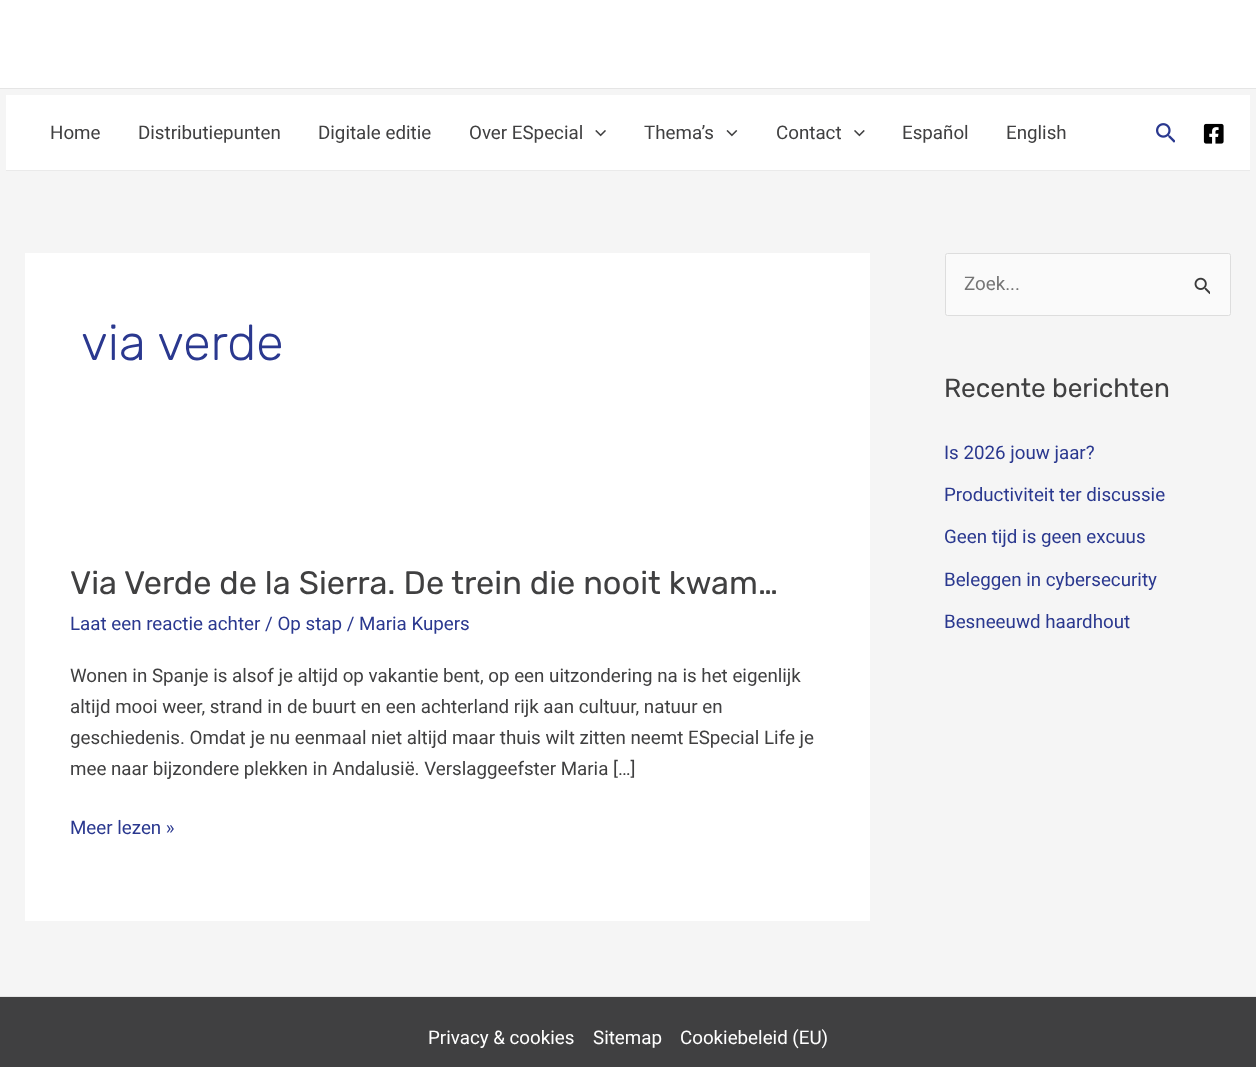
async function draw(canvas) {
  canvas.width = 1256;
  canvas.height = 1067;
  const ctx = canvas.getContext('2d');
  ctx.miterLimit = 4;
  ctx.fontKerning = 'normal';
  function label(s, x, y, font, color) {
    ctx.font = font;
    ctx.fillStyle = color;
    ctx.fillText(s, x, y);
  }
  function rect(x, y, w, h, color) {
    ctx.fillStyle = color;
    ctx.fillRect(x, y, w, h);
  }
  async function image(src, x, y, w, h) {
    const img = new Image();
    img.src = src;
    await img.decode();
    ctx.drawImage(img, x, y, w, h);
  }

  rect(0, 0, 1256, 1067, '#f5f5f5');
  rect(0, 0, 1256, 88, '#fff');
  rect(0, 88, 1256, 1, '#e5e5e5');
  rect(6, 95, 1244, 75, '#fff');
  rect(6, 170, 1244, 1, '#eaeaea');
  label('Home', 50, 139, '18.75px Roboto', '#404041');
  label('Distributiepunten', 138, 139, '18.75px Roboto', '#404041');
  label('Digitale editie', 318, 139, '18.75px Roboto', '#404041');
  label('Over ESpecial', 469, 139, '18.75px Roboto', '#404041');
  await image('assets/img1.png', 595, 130, 11, 7);
  label('Thema’s', 644, 139, '18.75px Roboto', '#404041');
  await image('assets/img2.png', 726, 130, 12, 7);
  label('Contact', 776, 139, '18.75px Roboto', '#404041');
  await image('assets/img3.png', 854, 130, 11, 7);
  label('Español', 902, 139, '18.75px Roboto', '#404041');
  label('English', 1006, 139, '18.75px Roboto', '#404041');
  await image('assets/img4.png', 1156, 123, 19, 20);
  await image('assets/img5.png', 1203, 123, 21, 21);
  rect(25, 253, 845, 668, '#fff');
  label('via verde', 81, 360, '300 50px Rubik', '#2a388f');
  label('Via Verde de la Sierra. De trein die nooit kwam…', 70, 594, '32.5px Rubik', '#404041');
  label('Laat een reactie achter / Op stap / Maria Kupers', 70, 630, '18.75px Roboto', '#2a388f');
  label('Wonen in Spanje is alsof je altijd op vakantie bent, op een uitzondering na is het eigenlijk', 70, 682, '18.75px Roboto', '#404041');
  label('altijd mooi weer, strand in de buurt en een achterland rijk aan cultuur, natuur en', 70, 713, '18.75px Roboto', '#404041');
  label('geschiedenis. Omdat je nu eenmaal niet altijd maar thuis wilt zitten neemt ESpecial Life je', 70, 744, '18.75px Roboto', '#404041');
  label('mee naar bijzondere plekken in Andalusië. Verslaggeefster Maria […]', 70, 775, '18.75px Roboto', '#404041');
  label('Meer lezen »', 70, 834, '18.75px Roboto', '#2a388f');
  ctx.fillStyle = '#fafafa';
  ctx.beginPath();
  ctx.roundRect(945.5, 253.5, 285, 62, 2);
  ctx.fill();
  ctx.strokeStyle = '#ddd';
  ctx.stroke();
  label('Zoek...', 964, 290, '18.75px Roboto', '#757575');
  await image('assets/img6.png', 1194, 277, 16, 18);
  label('Recente berichten', 944, 397, '26.25px Rubik', '#404041');
  label('Is 2026 jouw jaar?', 944, 459, '18.75px Roboto', '#2a388f');
  label('Productiviteit ter discussie', 944, 501, '18.75px Roboto', '#2a388f');
  label('Geen tijd is geen excuus', 944, 543, '18.75px Roboto', '#2a388f');
  label('Beleggen in cybersecurity', 944, 586, '18.75px Roboto', '#2a388f');
  label('Besneeuwd haardhout', 944, 628, '18.75px Roboto', '#2a388f');
  rect(0, 997, 1256, 70, '#404041');
  rect(0, 996, 1256, 1, '#e5e5e5');
  label('Privacy & cookies', 428, 1044, '18.75px Roboto', '#fff');
  label('Sitemap', 593, 1044, '18.75px Roboto', '#fff');
  label('Cookiebeleid (EU)', 680, 1044, '18.75px Roboto', '#fff');
}

draw(document.querySelector('canvas'));
